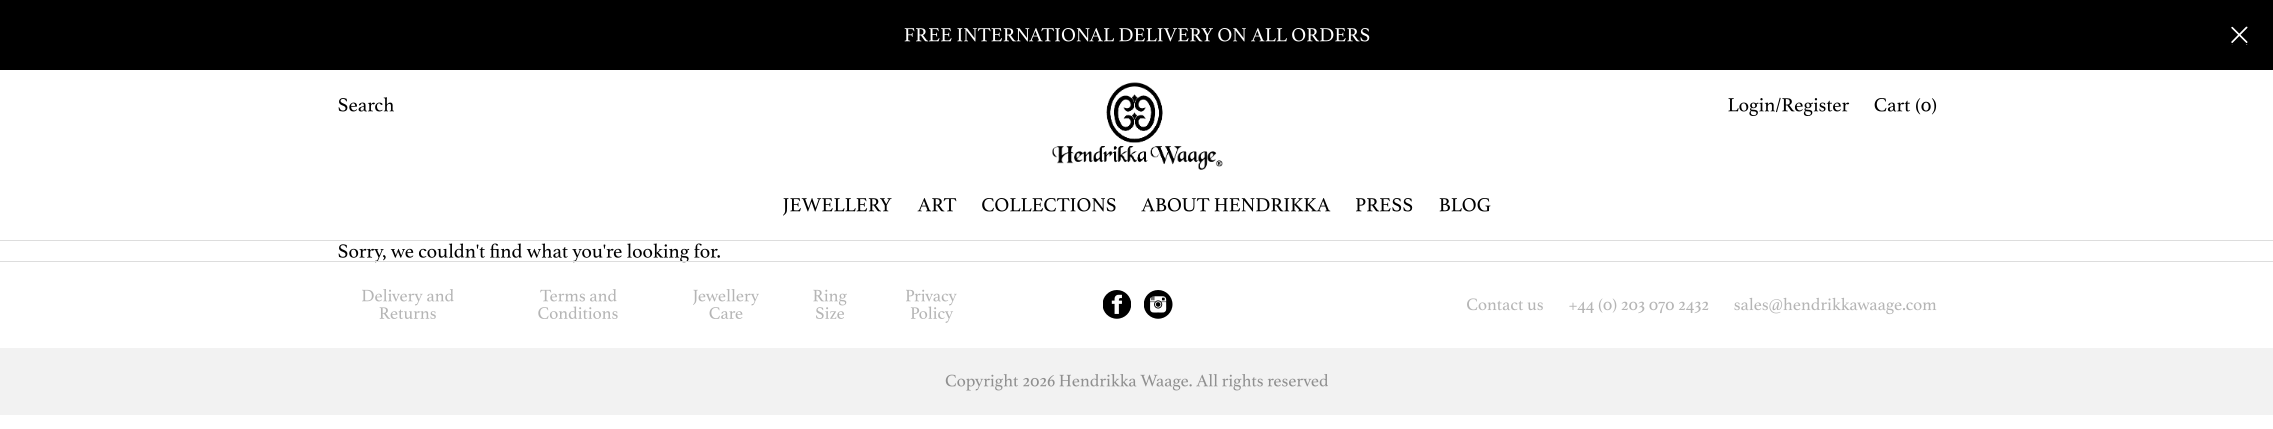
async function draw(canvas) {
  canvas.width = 2273;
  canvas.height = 429;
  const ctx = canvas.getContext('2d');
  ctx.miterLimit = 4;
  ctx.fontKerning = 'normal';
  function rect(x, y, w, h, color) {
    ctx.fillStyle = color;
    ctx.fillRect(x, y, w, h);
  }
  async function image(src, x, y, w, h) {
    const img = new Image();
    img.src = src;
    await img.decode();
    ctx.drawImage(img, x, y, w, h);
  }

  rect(0, 0, 2273, 429, '#fff');
  rect(0, 0, 2273, 70, '#000');
  await image('assets/img1.png', 904, 28, 466, 14);
  await image('assets/img2.png', 2231, 26, 17, 19);
  rect(0, 240, 2273, 1, '#ddd');
  await image('assets/img3.png', 338, 97, 56, 15);
  await image('assets/img4.png', 1052, 82, 171, 88);
  await image('assets/img5.png', 1728, 97, 122, 19);
  await image('assets/img6.png', 1874, 98, 37, 14);
  await image('assets/img7.png', 1916, 98, 21, 17);
  await image('assets/img8.png', 783, 198, 109, 18);
  await image('assets/img9.png', 917, 198, 40, 14);
  await image('assets/img10.png', 982, 198, 134, 14);
  await image('assets/img11.png', 1141, 198, 190, 14);
  await image('assets/img12.png', 1355, 198, 58, 14);
  await image('assets/img13.png', 1439, 198, 52, 14);
  await image('assets/img14.png', 338, 243, 382, 20);
  rect(0, 261, 2273, 1, '#ddd');
  await image('assets/img15.png', 362, 289, 92, 17);
  await image('assets/img16.png', 379, 307, 57, 12);
  await image('assets/img17.png', 540, 289, 77, 13);
  await image('assets/img18.png', 538, 306, 80, 13);
  await image('assets/img19.png', 693, 289, 66, 17);
  await image('assets/img20.png', 709, 307, 34, 12);
  await image('assets/img21.png', 813, 289, 34, 17);
  await image('assets/img22.png', 816, 307, 28, 12);
  await image('assets/img23.png', 906, 289, 51, 17);
  await image('assets/img24.png', 910, 306, 44, 17);
  await image('assets/img25.png', 1103, 290, 28, 29);
  await image('assets/img26.png', 1144, 290, 29, 29);
  await image('assets/img27.png', 1467, 298, 76, 13);
  await image('assets/img28.png', 1569, 298, 140, 16);
  await image('assets/img29.png', 1734, 297, 203, 18);
  rect(0, 348, 2273, 67, '#f2f2f2');
  await image('assets/img30.png', 945, 374, 74, 17);
  await image('assets/img31.png', 1023, 375, 32, 12);
  await image('assets/img32.png', 1059, 374, 269, 17);
}

draw(document.querySelector('canvas'));
